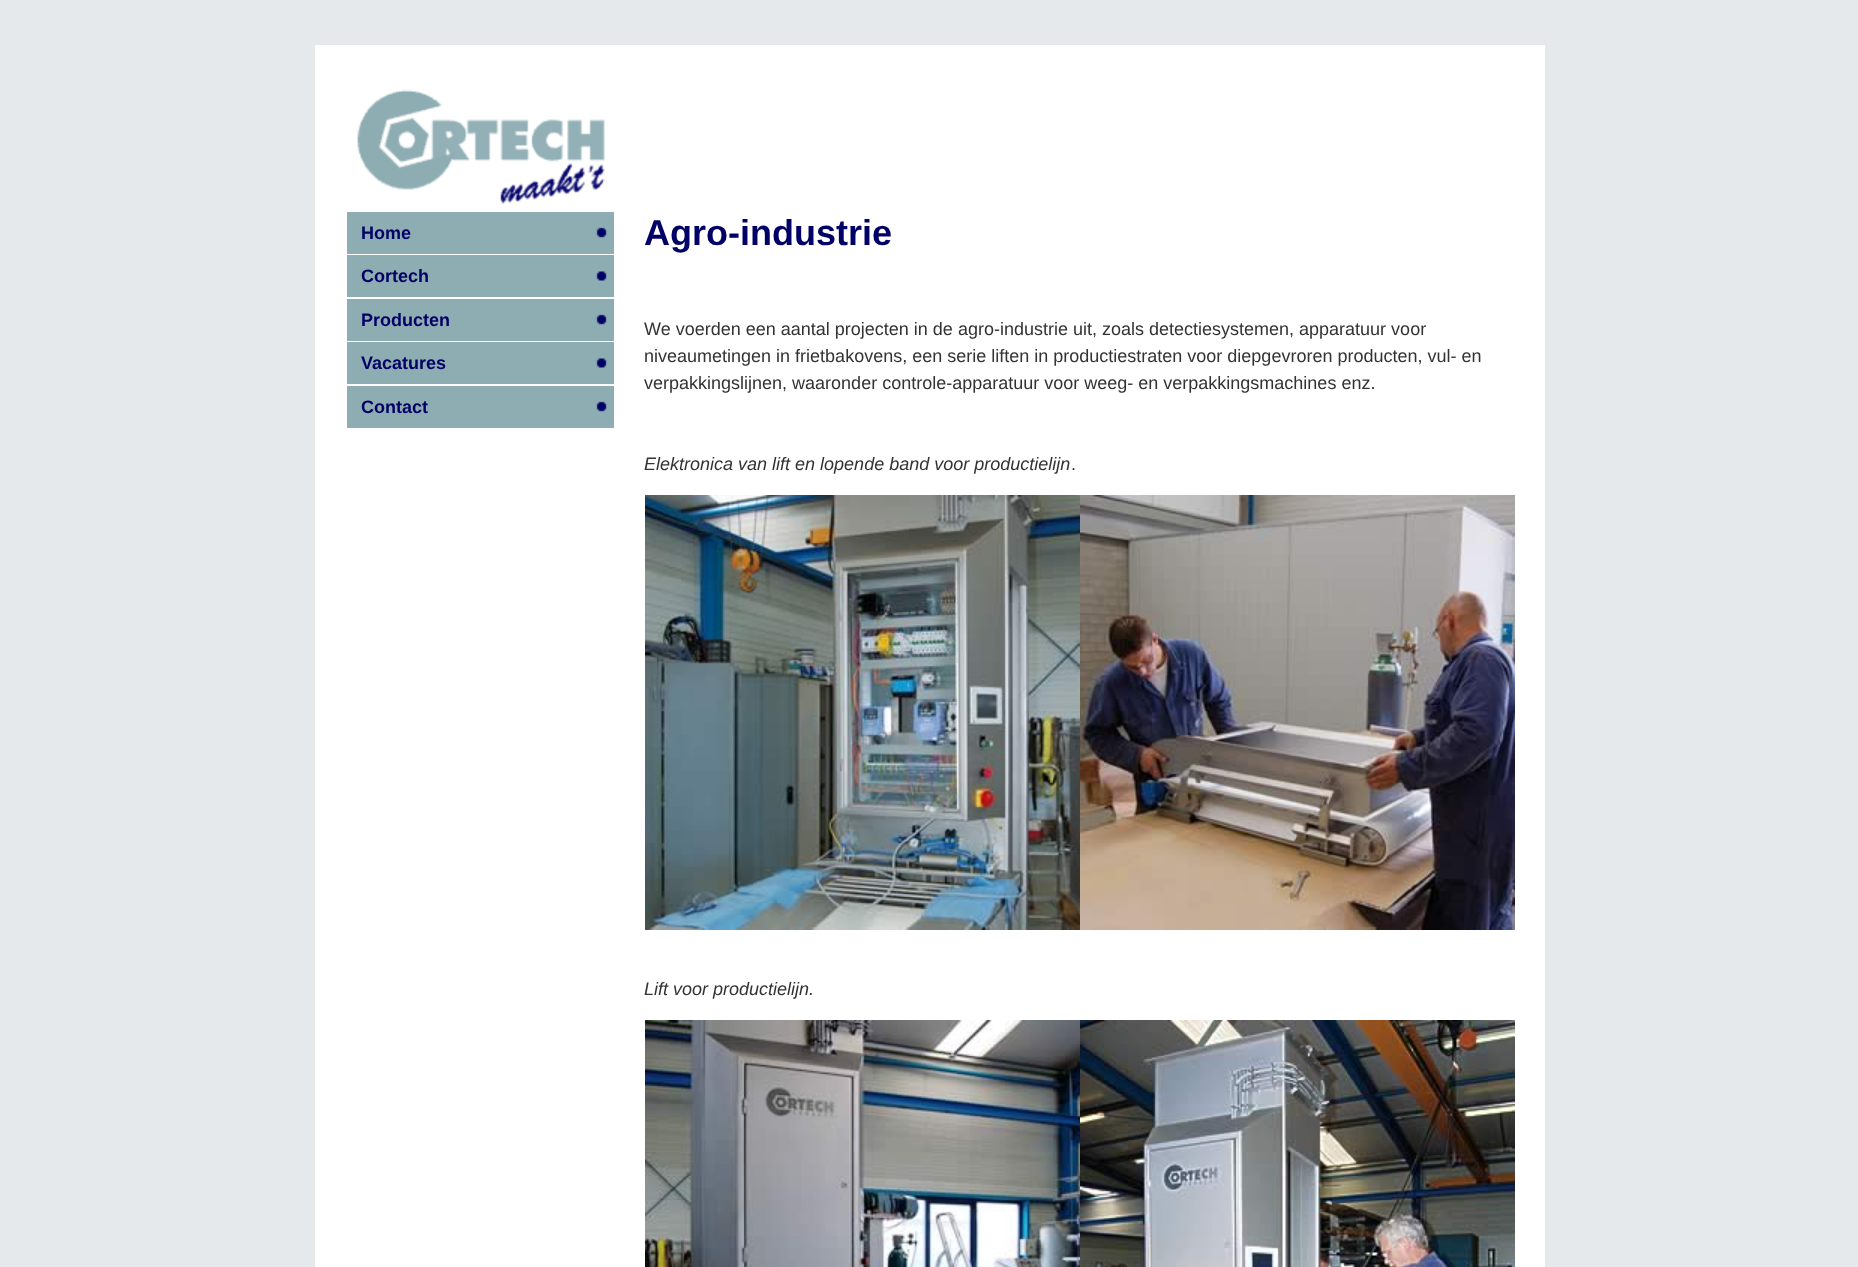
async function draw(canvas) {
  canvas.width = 1858;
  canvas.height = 1267;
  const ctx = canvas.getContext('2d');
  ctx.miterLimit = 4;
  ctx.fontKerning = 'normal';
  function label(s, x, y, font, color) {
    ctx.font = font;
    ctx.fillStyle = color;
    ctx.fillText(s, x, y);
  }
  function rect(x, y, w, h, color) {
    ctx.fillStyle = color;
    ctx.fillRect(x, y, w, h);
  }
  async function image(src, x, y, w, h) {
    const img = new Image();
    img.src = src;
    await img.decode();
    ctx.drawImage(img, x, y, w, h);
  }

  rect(0, 0, 1858, 1267, '#e5e9ec');
  rect(315, 45, 1230, 1222, '#fff');
  await image('assets/img1.png', 357, 89, 248, 116);
  rect(347, 212, 267, 42, '#8eadb3');
  await image('assets/img2.png', 596, 227, 11, 11);
  label('Home', 361, 239, 'bold 18px Liberation Sans', '#006');
  rect(347, 255, 267, 42, '#8eadb3');
  await image('assets/img3.png', 596, 271, 11, 10);
  label('Cortech', 361, 282, 'bold 18px Liberation Sans', '#006');
  rect(347, 299, 267, 42, '#8eadb3');
  await image('assets/img2.png', 596, 314, 11, 11);
  label('Producten', 361, 326, 'bold 18px Liberation Sans', '#006');
  rect(347, 342, 267, 42, '#8eadb3');
  await image('assets/img3.png', 596, 358, 11, 10);
  label('Vacatures', 361, 369, 'bold 18px Liberation Sans', '#006');
  rect(347, 386, 267, 42, '#8eadb3');
  await image('assets/img2.png', 596, 401, 11, 11);
  label('Contact', 361, 413, 'bold 18px Liberation Sans', '#006');
  label('Agro-industrie', 644, 245, 'bold 36px Liberation Sans', '#006');
  label('We voerden een aantal projecten in de agro-industrie uit, zoals detectiesystemen, apparatuur voor', 644, 335, '18px Liberation Sans', '#333');
  label('niveaumetingen in frietbakovens, een serie liften in productiestraten voor diepgevroren producten, vul- en', 644, 362, '18px Liberation Sans', '#333');
  label('verpakkingslijnen, waaronder controle-apparatuur voor weeg- en verpakkingsmachines enz.', 644, 389, '18px Liberation Sans', '#333');
  label('Elektronica van lift en lopende band voor productielijn', 644, 470, 'italic 18px Liberation Sans', '#333');
  label('.', 1071, 470, '18px Liberation Sans', '#333');
  await image('assets/img4.png', 645, 495, 435, 435);
  await image('assets/img5.png', 1080, 495, 435, 435);
  label('Lift voor productielijn.', 644, 995, 'italic 18px Liberation Sans', '#333');
  await image('assets/img6.png', 645, 1020, 435, 247);
  await image('assets/img7.png', 1080, 1020, 435, 247);
}

draw(document.querySelector('canvas'));
